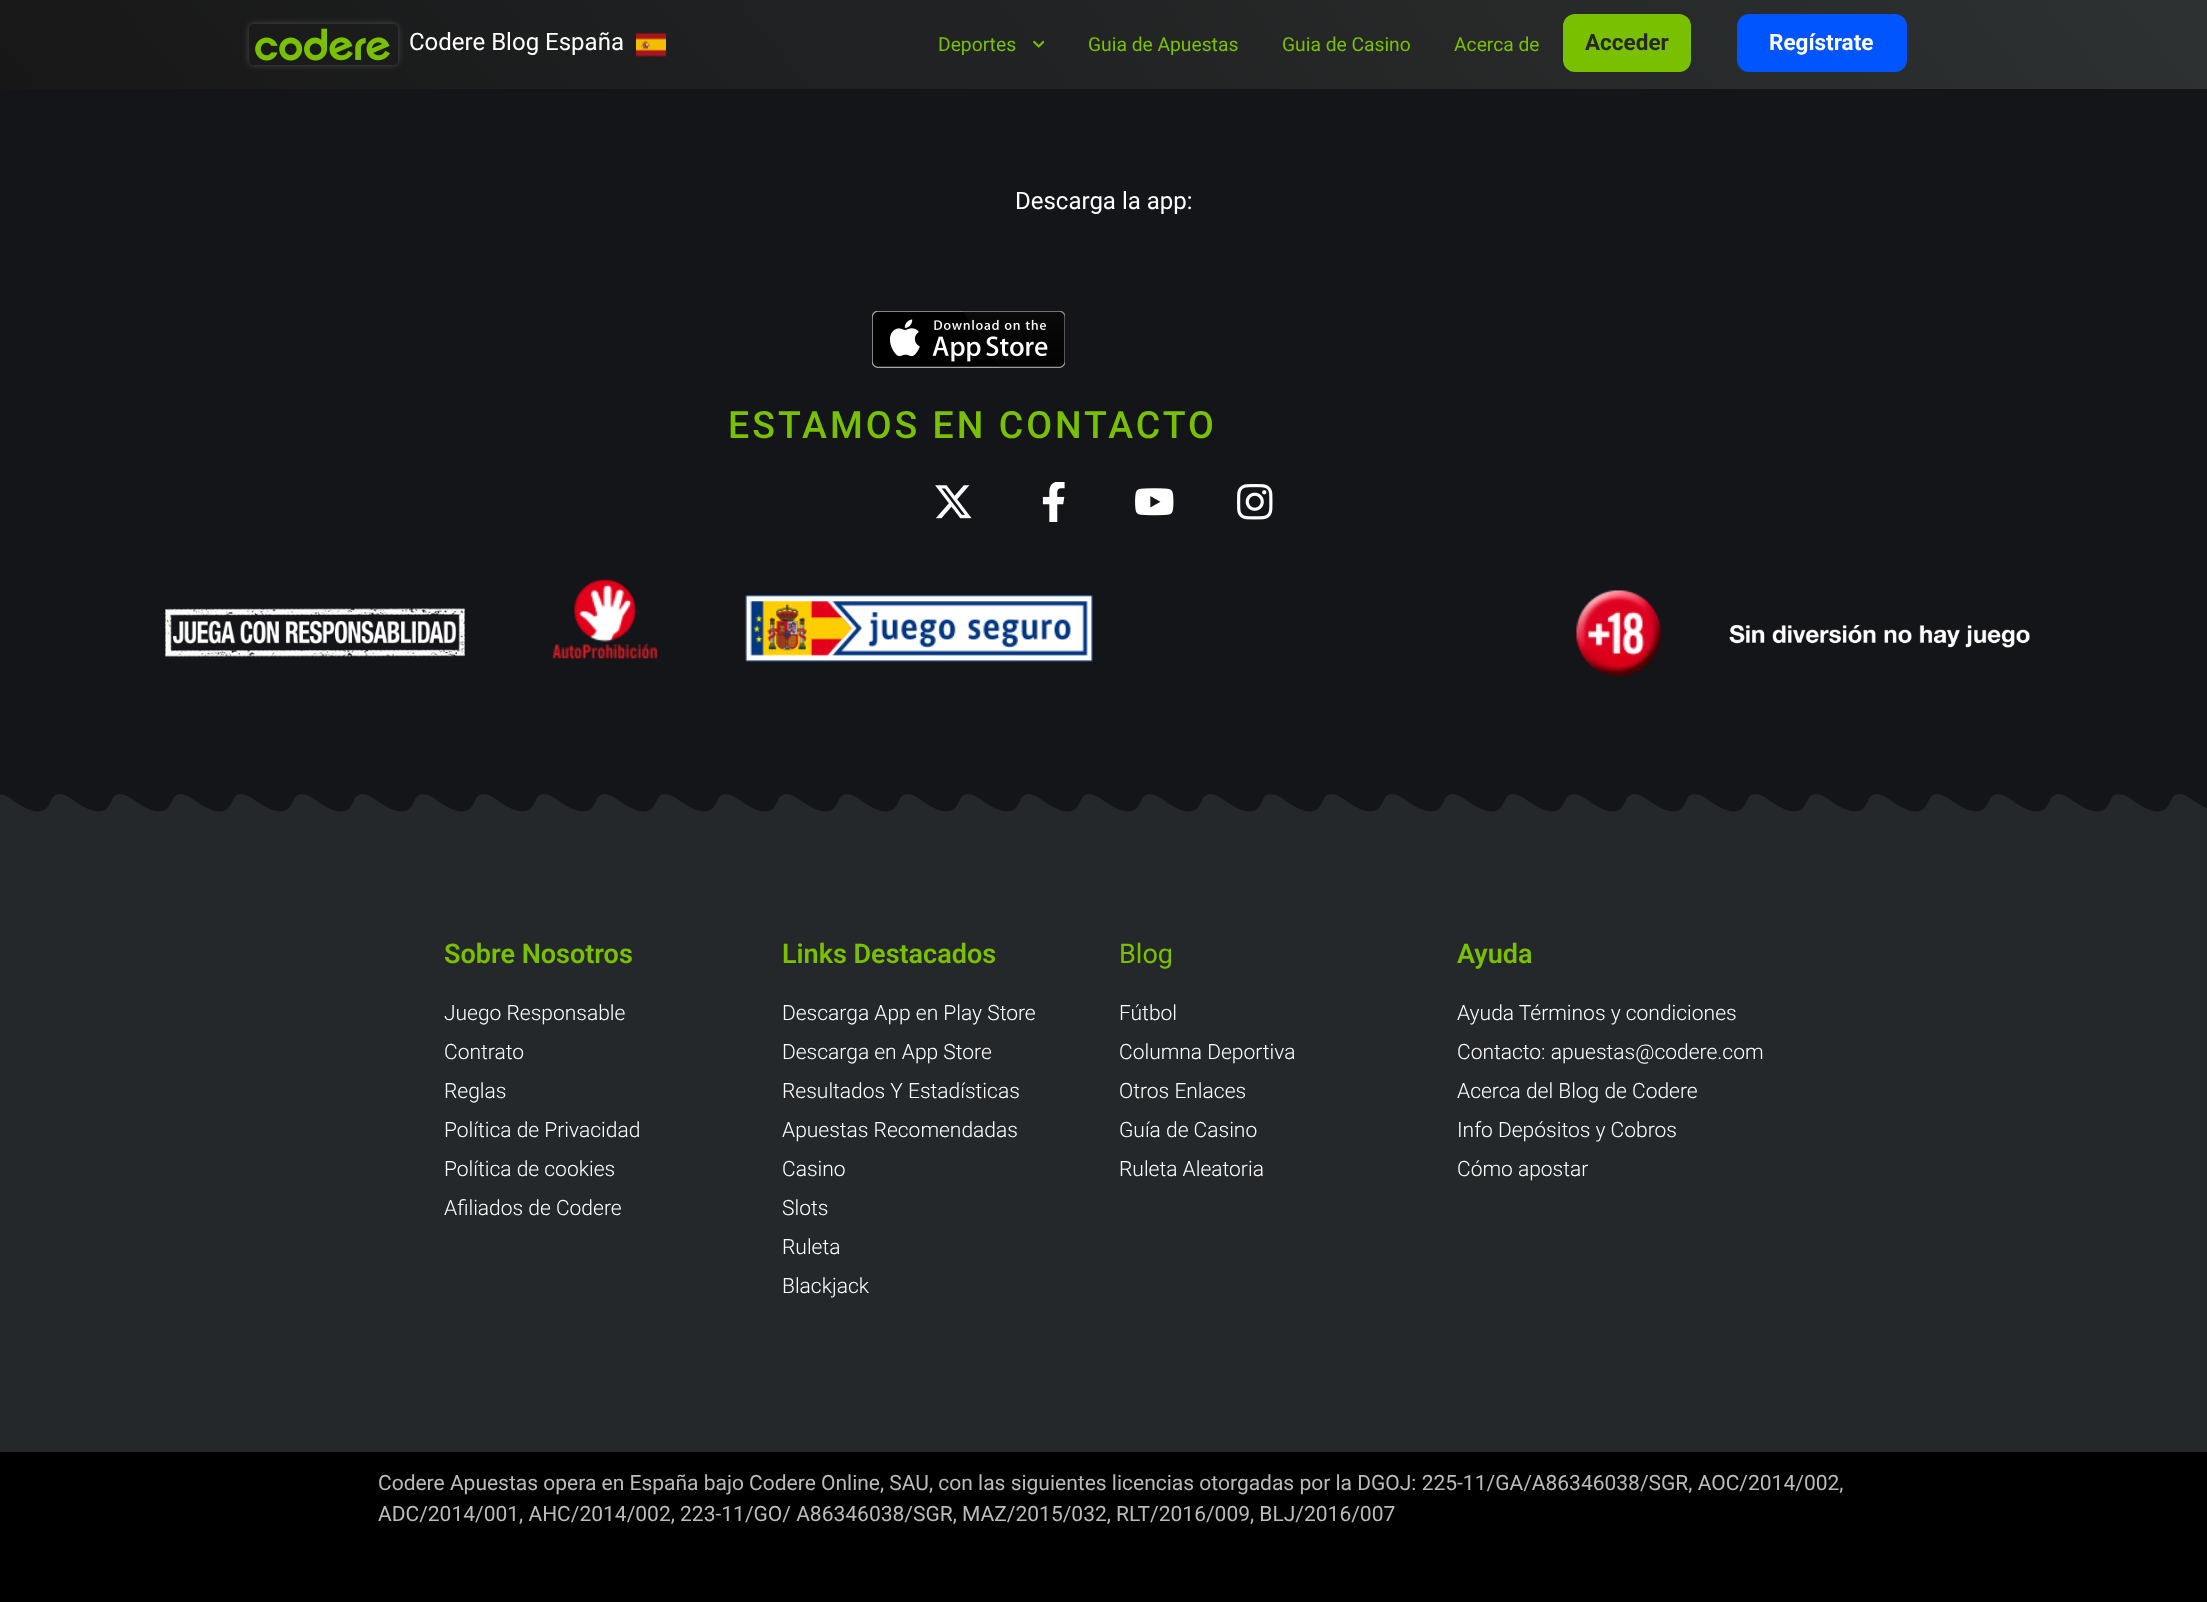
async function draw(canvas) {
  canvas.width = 2207;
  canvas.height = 1602;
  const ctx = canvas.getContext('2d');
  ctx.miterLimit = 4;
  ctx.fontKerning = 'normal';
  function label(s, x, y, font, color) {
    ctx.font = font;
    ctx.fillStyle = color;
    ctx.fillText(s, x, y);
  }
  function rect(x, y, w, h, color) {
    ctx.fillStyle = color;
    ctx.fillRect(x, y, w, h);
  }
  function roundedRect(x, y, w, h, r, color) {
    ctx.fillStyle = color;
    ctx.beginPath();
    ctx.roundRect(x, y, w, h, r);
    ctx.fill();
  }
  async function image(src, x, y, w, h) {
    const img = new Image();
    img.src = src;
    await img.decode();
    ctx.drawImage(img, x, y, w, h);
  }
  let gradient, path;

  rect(0, 0, 2207, 1602, '#141519');
  gradient = ctx.createLinearGradient(434, 606, 1774, -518);
  gradient.addColorStop(0, '#171718');
  gradient.addColorStop(1, '#2e3131');
  ctx.fillStyle = gradient;
  ctx.fillRect(0, 0, 2207, 89);
  ctx.save();
  path = new Path2D('M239 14H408V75H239ZM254 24H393C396 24 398 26 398 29V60C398 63 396 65 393 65H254C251 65 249 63 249 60V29C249 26 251 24 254 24Z');
  ctx.clip(path, 'evenodd');
  ctx.fillStyle = '#4d4c4c';
  ctx.filter = 'blur(3px)';
  ctx.beginPath();
  ctx.roundRect(249, 24, 149, 41, 5);
  ctx.fill();
  ctx.filter = 'none';
  ctx.restore();
  await image('assets/img1.png', 255, 28, 135, 33);
  label('Codere Blog España', 409, 50, '24px Roboto', '#fff');
  await image('assets/img2.png', 636, 33, 30, 24);
  label('Deportes', 938, 51, '19.25px Roboto', '#79c000');
  await image('assets/img3.png', 1033, 40, 11, 8);
  label('Guia de Apuestas', 1088, 51, '19.25px Roboto', '#79c000');
  label('Guia de Casino', 1282, 51, '19.25px Roboto', '#79c000');
  label('Acerca de', 1454, 51, '19.25px Roboto', '#79c000');
  roundedRect(1563, 14, 128, 58, 12, '#79c000');
  label('Acceder', 1585, 50, 'bold 22.5px Roboto', '#282827');
  roundedRect(1737, 14, 170, 58, 12, '#0055fe');
  label('Regístrate', 1769, 50, 'bold 22.5px Roboto', '#fff');
  label('Descarga la app:', 1015, 209, '24px Roboto', '#fff');
  await image('assets/img4.png', 872, 311, 193, 57);
  ctx.letterSpacing = '3px';
  label('ESTAMOS EN CONTACTO', 728, 438, '500 37.5px Roboto', '#79c000');
  await image('assets/img5.png', 935, 485, 37, 34);
  await image('assets/img6.png', 1042, 482, 23, 40);
  await image('assets/img7.png', 1135, 488, 39, 28);
  await image('assets/img8.png', 1237, 484, 36, 36);
  await image('assets/img9.png', 165, 608, 300, 49);
  await image('assets/img10.png', 552, 578, 106, 82);
  await image('assets/img11.png', 745, 595, 348, 67);
  await image('assets/img12.png', 1576, 590, 85, 87);
  await image('assets/img13.png', 1729, 625, 301, 23);
  rect(0, 794, 2207, 658, '#25282b');
  await image('assets/img14.png', 0, 791, 2207, 21);
  ctx.letterSpacing = '0px';
  label('Sobre Nosotros', 444, 963, '600 27px Roboto', '#79c000');
  label('Juego Responsable', 444, 1020, '300 21px Roboto', '#fff');
  label('Contrato', 444, 1059, '300 21px Roboto', '#fff');
  label('Reglas', 444, 1098, '300 21px Roboto', '#fff');
  label('Política de Privacidad', 444, 1137, '300 21px Roboto', '#fff');
  label('Política de cookies', 444, 1176, '300 21px Roboto', '#fff');
  label('Afiliados de Codere', 444, 1215, '300 21px Roboto', '#fff');
  label('Links Destacados', 782, 963, '600 27px Roboto', '#79c000');
  label('Descarga App en Play Store', 782, 1020, '300 21px Roboto', '#fff');
  label('Descarga en App Store', 782, 1059, '300 21px Roboto', '#fff');
  label('Resultados Y Estadísticas', 782, 1098, '300 21px Roboto', '#fff');
  label('Apuestas Recomendadas', 782, 1137, '300 21px Roboto', '#fff');
  label('Casino', 782, 1176, '300 21px Roboto', '#fff');
  label('Slots', 782, 1215, '300 21px Roboto', '#fff');
  label('Ruleta', 782, 1254, '300 21px Roboto', '#fff');
  label('Blackjack', 782, 1293, '300 21px Roboto', '#fff');
  label('Blog', 1119, 963, '27px Roboto', '#79c000');
  label('Fútbol', 1119, 1020, '300 21px Roboto', '#fff');
  label('Columna Deportiva', 1119, 1059, '300 21px Roboto', '#fff');
  label('Otros Enlaces', 1119, 1098, '300 21px Roboto', '#fff');
  label('Guía de Casino', 1119, 1137, '300 21px Roboto', '#fff');
  label('Ruleta Aleatoria', 1119, 1176, '300 21px Roboto', '#fff');
  label('Ayuda', 1457, 963, '600 27px Roboto', '#79c000');
  label('Ayuda Términos y condiciones', 1457, 1020, '300 21px Roboto', '#fff');
  label('Contacto: apuestas@codere.com', 1457, 1059, '300 21px Roboto', '#fff');
  label('Acerca del Blog de Codere', 1457, 1098, '300 21px Roboto', '#fff');
  label('Info Depósitos y Cobros', 1457, 1137, '300 21px Roboto', '#fff');
  label('Cómo apostar', 1457, 1176, '300 21px Roboto', '#fff');
  rect(0, 1452, 2207, 150, '#000');
  label('Codere Apuestas opera en España bajo Codere Online, SAU, con las siguientes licencias otorgadas por la DGOJ: 225-11/GA/A86346038/SGR, AOC/2014/002,', 378, 1490, '21px Roboto', '#bbb');
  label('ADC/2014/001, AHC/2014/002, 223-11/GO/ A86346038/SGR, MAZ/2015/032, RLT/2016/009, BLJ/2016/007', 378, 1521, '21px Roboto', '#bbb');
}

draw(document.querySelector('canvas'));
